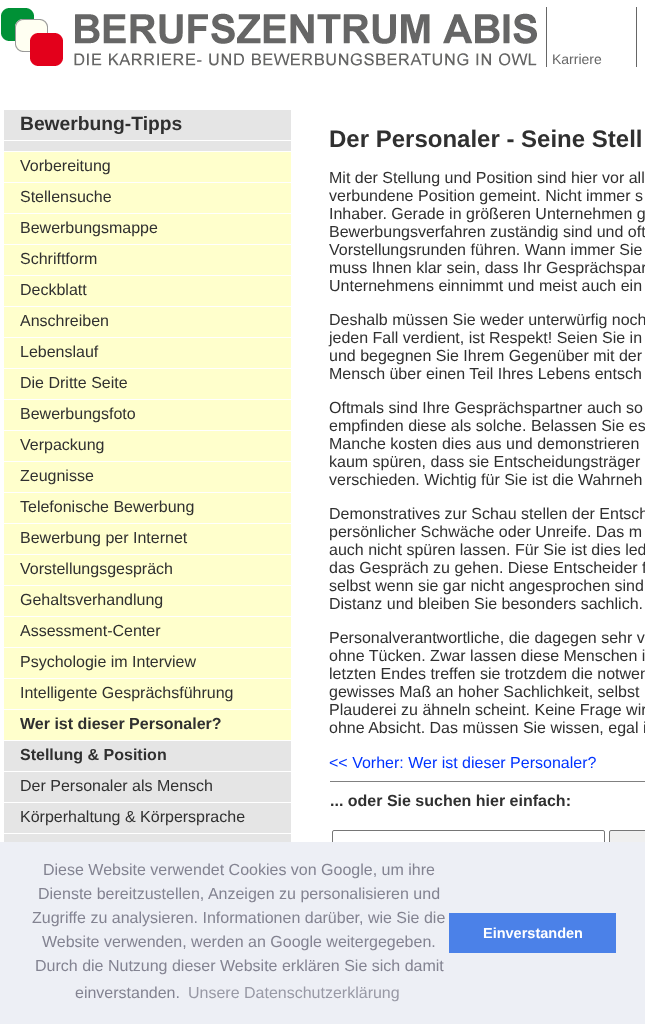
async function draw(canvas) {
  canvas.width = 645;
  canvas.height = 1024;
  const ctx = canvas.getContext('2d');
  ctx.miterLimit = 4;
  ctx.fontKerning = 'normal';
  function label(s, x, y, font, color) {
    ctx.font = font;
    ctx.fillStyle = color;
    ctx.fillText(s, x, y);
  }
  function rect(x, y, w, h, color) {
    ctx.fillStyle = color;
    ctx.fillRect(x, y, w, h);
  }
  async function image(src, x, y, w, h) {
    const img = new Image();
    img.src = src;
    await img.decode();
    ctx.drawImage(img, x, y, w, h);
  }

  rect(0, 0, 645, 1024, '#fff');
  await image('assets/img1.png', 1, 8, 536, 58);
  rect(546, 7, 1, 60, '#666');
  label('Karriere', 552, 64, '14px Liberation Sans', '#666');
  rect(636, 7, 1, 60, '#666');
  rect(4, 110, 287, 30, '#e5e5e5');
  label('Bewerbung-Tipps', 20, 130, 'bold 19.25px Liberation Sans', '#303030');
  rect(4, 141, 287, 10, '#e5e5e5');
  rect(4, 152, 287, 30, '#ffc');
  label('Vorbereitung', 20, 171, '16px Liberation Sans', '#303030');
  rect(4, 183, 287, 30, '#ffc');
  label('Stellensuche', 20, 202, '16px Liberation Sans', '#303030');
  rect(4, 214, 287, 30, '#ffc');
  label('Bewerbungsmappe', 20, 233, '16px Liberation Sans', '#303030');
  rect(4, 245, 287, 30, '#ffc');
  label('Schriftform', 20, 264, '16px Liberation Sans', '#303030');
  rect(4, 276, 287, 30, '#ffc');
  label('Deckblatt', 20, 295, '16px Liberation Sans', '#303030');
  rect(4, 307, 287, 30, '#ffc');
  label('Anschreiben', 20, 326, '16px Liberation Sans', '#303030');
  rect(4, 338, 287, 30, '#ffc');
  label('Lebenslauf', 20, 357, '16px Liberation Sans', '#303030');
  rect(4, 369, 287, 30, '#ffc');
  label('Die Dritte Seite', 20, 388, '16px Liberation Sans', '#303030');
  rect(4, 400, 287, 30, '#ffc');
  label('Bewerbungsfoto', 20, 419, '16px Liberation Sans', '#303030');
  rect(4, 431, 287, 30, '#ffc');
  label('Verpackung', 20, 450, '16px Liberation Sans', '#303030');
  rect(4, 462, 287, 30, '#ffc');
  label('Zeugnisse', 20, 481, '16px Liberation Sans', '#303030');
  rect(4, 493, 287, 30, '#ffc');
  label('Telefonische Bewerbung', 20, 512, '16px Liberation Sans', '#303030');
  rect(4, 524, 287, 30, '#ffc');
  label('Bewerbung per Internet', 20, 543, '16px Liberation Sans', '#303030');
  rect(4, 555, 287, 30, '#ffc');
  label('Vorstellungsgespräch', 20, 574, '16px Liberation Sans', '#303030');
  rect(4, 586, 287, 30, '#ffc');
  label('Gehaltsverhandlung', 20, 605, '16px Liberation Sans', '#303030');
  rect(4, 617, 287, 30, '#ffc');
  label('Assessment-Center', 20, 636, '16px Liberation Sans', '#303030');
  rect(4, 648, 287, 30, '#ffc');
  label('Psychologie im Interview', 20, 667, '16px Liberation Sans', '#303030');
  rect(4, 679, 287, 30, '#ffc');
  label('Intelligente Gesprächsführung', 20, 698, '16px Liberation Sans', '#303030');
  rect(4, 710, 287, 30, '#ffc');
  label('Wer ist dieser Personaler?', 20, 729, 'bold 16px Liberation Sans', '#303030');
  rect(4, 741, 287, 30, '#e5e5e5');
  label('Stellung & Position', 20, 760, 'bold 16px Liberation Sans', '#303030');
  rect(4, 772, 287, 30, '#e5e5e5');
  label('Der Personaler als Mensch', 20, 791, '16px Liberation Sans', '#303030');
  rect(4, 803, 287, 30, '#e5e5e5');
  label('Körperhaltung & Körpersprache', 20, 822, '16px Liberation Sans', '#303030');
  rect(4, 834, 287, 8, '#e5e5e5');
  label('Der Personaler - Seine Stell', 329, 147, 'bold 24px Liberation Sans', '#303030');
  label('Mit der Stellung und Position sind hier vor all', 329, 183, '16px Liberation Sans', '#303030');
  label('verbundene Position gemeint. Nicht immer s', 329, 201, '16px Liberation Sans', '#303030');
  label('Inhaber. Gerade in größeren Unternehmen g', 329, 219, '16px Liberation Sans', '#303030');
  label('Bewerbungsverfahren zuständig sind und oft', 329, 237, '16px Liberation Sans', '#303030');
  label('Vorstellungsrunden führen. Wann immer Sie', 329, 255, '16px Liberation Sans', '#303030');
  label('muss Ihnen klar sein, dass Ihr Gesprächspar', 329, 273, '16px Liberation Sans', '#303030');
  label('Unternehmens einnimmt und meist auch ein', 329, 291, '16px Liberation Sans', '#303030');
  label('Deshalb müssen Sie weder unterwürfig noch', 329, 325, '16px Liberation Sans', '#303030');
  label('jeden Fall verdient, ist Respekt! Seien Sie in', 329, 343, '16px Liberation Sans', '#303030');
  label('und begegnen Sie Ihrem Gegenüber mit der', 329, 361, '16px Liberation Sans', '#303030');
  label('Mensch über einen Teil Ihres Lebens entsch', 329, 379, '16px Liberation Sans', '#303030');
  label('Oftmals sind Ihre Gesprächspartner auch so', 329, 413, '16px Liberation Sans', '#303030');
  label('empfinden diese als solche. Belassen Sie es', 329, 431, '16px Liberation Sans', '#303030');
  label('Manche kosten dies aus und demonstrieren', 329, 449, '16px Liberation Sans', '#303030');
  label('kaum spüren, dass sie Entscheidungsträger', 329, 467, '16px Liberation Sans', '#303030');
  label('verschieden. Wichtig für Sie ist die Wahrneh', 329, 485, '16px Liberation Sans', '#303030');
  label('Demonstratives zur Schau stellen der Entsch', 329, 519, '16px Liberation Sans', '#303030');
  label('persönlicher Schwäche oder Unreife. Das m', 329, 537, '16px Liberation Sans', '#303030');
  label('auch nicht spüren lassen. Für Sie ist dies led', 329, 555, '16px Liberation Sans', '#303030');
  label('das Gespräch zu gehen. Diese Entscheider f', 329, 573, '16px Liberation Sans', '#303030');
  label('selbst wenn sie gar nicht angesprochen sind', 329, 591, '16px Liberation Sans', '#303030');
  label('Distanz und bleiben Sie besonders sachlich.', 329, 609, '16px Liberation Sans', '#303030');
  label('Personalverantwortliche, die dagegen sehr v', 329, 643, '16px Liberation Sans', '#303030');
  label('ohne Tücken. Zwar lassen diese Menschen i', 329, 661, '16px Liberation Sans', '#303030');
  label('letzten Endes treffen sie trotzdem die notwen', 329, 679, '16px Liberation Sans', '#303030');
  label('gewisses Maß an hoher Sachlichkeit, selbst', 329, 697, '16px Liberation Sans', '#303030');
  label('Plauderei zu ähneln scheint. Keine Frage wir', 329, 715, '16px Liberation Sans', '#303030');
  label('ohne Absicht. Das müssen Sie wissen, egal i', 329, 733, '16px Liberation Sans', '#303030');
  label('<< Vorher: Wer ist dieser Personaler?', 329, 768, '16px Liberation Sans', '#03f');
  rect(330, 781, 315, 1, '#808080');
  label('... oder Sie suchen hier einfach:', 330, 806, 'bold 16px Liberation Sans', '#303030');
  ctx.beginPath();
  ctx.roundRect(332.5, 830.5, 272, 20, 1.5);
  ctx.strokeStyle = '#767676';
  ctx.stroke();
  ctx.fillStyle = '#efefef';
  ctx.beginPath();
  ctx.roundRect(609.5, 830.5, 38, 20, 1.5);
  ctx.fill();
  ctx.stroke();
  rect(0, 842, 645, 182, '#edeff5');
  label('Diese Website verwendet Cookies von Google, um ihre', 43, 875, '16px Liberation Sans', '#838391');
  label('Dienste bereitzustellen, Anzeigen zu personalisieren und', 38, 899, '16px Liberation Sans', '#838391');
  label('Zugriffe zu analysieren. Informationen darüber, wie Sie die', 32, 923, '16px Liberation Sans', '#838391');
  label('Website verwenden, werden an Google weitergegeben.', 42, 947, '16px Liberation Sans', '#838391');
  label('Durch die Nutzung dieser Website erklären Sie sich damit', 35, 971, '16px Liberation Sans', '#838391');
  label('einverstanden.', 75, 998, '16px Liberation Sans', '#838391');
  label('Unsere Datenschutzerklärung', 188, 998, '16px Liberation Sans', '#9899a5');
  rect(449, 913, 167, 40, '#4b81e8');
  label('Einverstanden', 483, 938, 'bold 14.5px Liberation Sans', '#fff');
}

draw(document.querySelector('canvas'));
